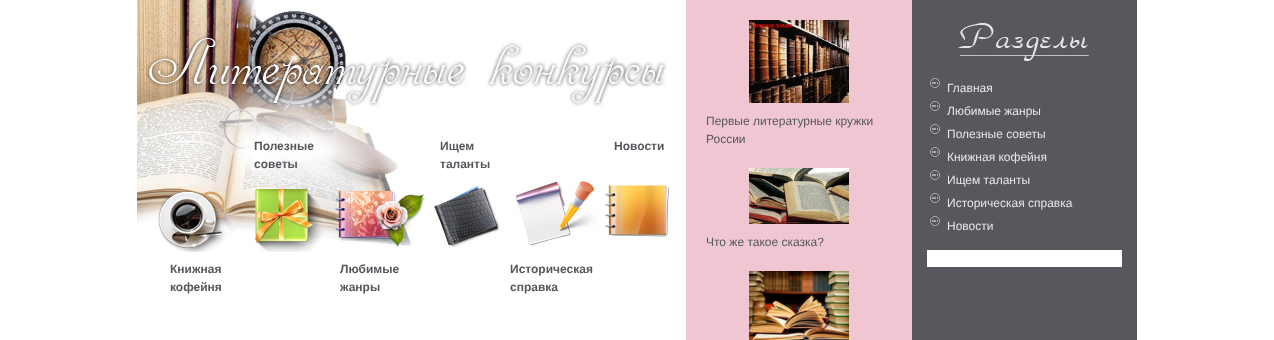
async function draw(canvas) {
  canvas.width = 1274;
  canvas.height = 340;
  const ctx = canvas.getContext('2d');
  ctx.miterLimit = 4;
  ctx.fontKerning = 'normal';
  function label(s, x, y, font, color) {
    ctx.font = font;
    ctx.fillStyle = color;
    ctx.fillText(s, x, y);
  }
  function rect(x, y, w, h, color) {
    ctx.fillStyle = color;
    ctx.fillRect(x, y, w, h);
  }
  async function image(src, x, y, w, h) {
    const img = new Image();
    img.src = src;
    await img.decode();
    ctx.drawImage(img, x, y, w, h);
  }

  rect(0, 0, 1274, 340, '#fff');
  await image('assets/img1.png', 137, 0, 536, 252);
  label('Полезные', 254, 150, 'bold 12px Liberation Sans', '#57585d');
  label('советы', 254, 168, 'bold 12px Liberation Sans', '#57585d');
  label('Ищем', 440, 150, 'bold 12px Liberation Sans', '#57585d');
  label('таланты', 440, 168, 'bold 12px Liberation Sans', '#57585d');
  label('Новости', 614, 150, 'bold 12px Liberation Sans', '#57585d');
  label('Книжная', 170, 273, 'bold 12px Liberation Sans', '#57585d');
  label('кофейня', 170, 291, 'bold 12px Liberation Sans', '#57585d');
  label('Любимые', 340, 273, 'bold 12px Liberation Sans', '#57585d');
  label('жанры', 340, 291, 'bold 12px Liberation Sans', '#57585d');
  label('Историческая', 510, 273, 'bold 12px Liberation Sans', '#57585d');
  label('справка', 510, 291, 'bold 12px Liberation Sans', '#57585d');
  rect(686, 0, 226, 340, '#f0c6d3');
  await image('assets/img2.png', 749, 20, 100, 83);
  label('Первые литературные кружки', 706, 125, '12px Liberation Sans', '#57585d');
  label('России', 706, 143, '12px Liberation Sans', '#57585d');
  await image('assets/img3.png', 749, 168, 100, 56);
  label('Что же такое сказка?', 706, 246, '12px Liberation Sans', '#57585d');
  await image('assets/img4.png', 749, 271, 100, 69);
  rect(912, 0, 225, 340, '#57585d');
  await image('assets/img5.png', 957, 21, 134, 42);
  await image('assets/img6.png', 930, 78, 10, 10);
  label('Главная', 947, 92, '12px Liberation Sans', '#e6e6e6');
  await image('assets/img6.png', 930, 101, 10, 10);
  label('Любимые жанры', 947, 115, '12px Liberation Sans', '#e6e6e6');
  await image('assets/img6.png', 930, 124, 10, 10);
  label('Полезные советы', 947, 138, '12px Liberation Sans', '#e6e6e6');
  await image('assets/img6.png', 930, 147, 10, 10);
  label('Книжная кофейня', 947, 161, '12px Liberation Sans', '#e6e6e6');
  await image('assets/img6.png', 930, 170, 10, 10);
  label('Ищем таланты', 947, 184, '12px Liberation Sans', '#e6e6e6');
  await image('assets/img6.png', 930, 193, 10, 10);
  label('Историческая справка', 947, 207, '12px Liberation Sans', '#e6e6e6');
  await image('assets/img6.png', 930, 216, 10, 10);
  label('Новости', 947, 230, '12px Liberation Sans', '#e6e6e6');
  rect(927, 250, 195, 17, '#fff');
}

draw(document.querySelector('canvas'));
